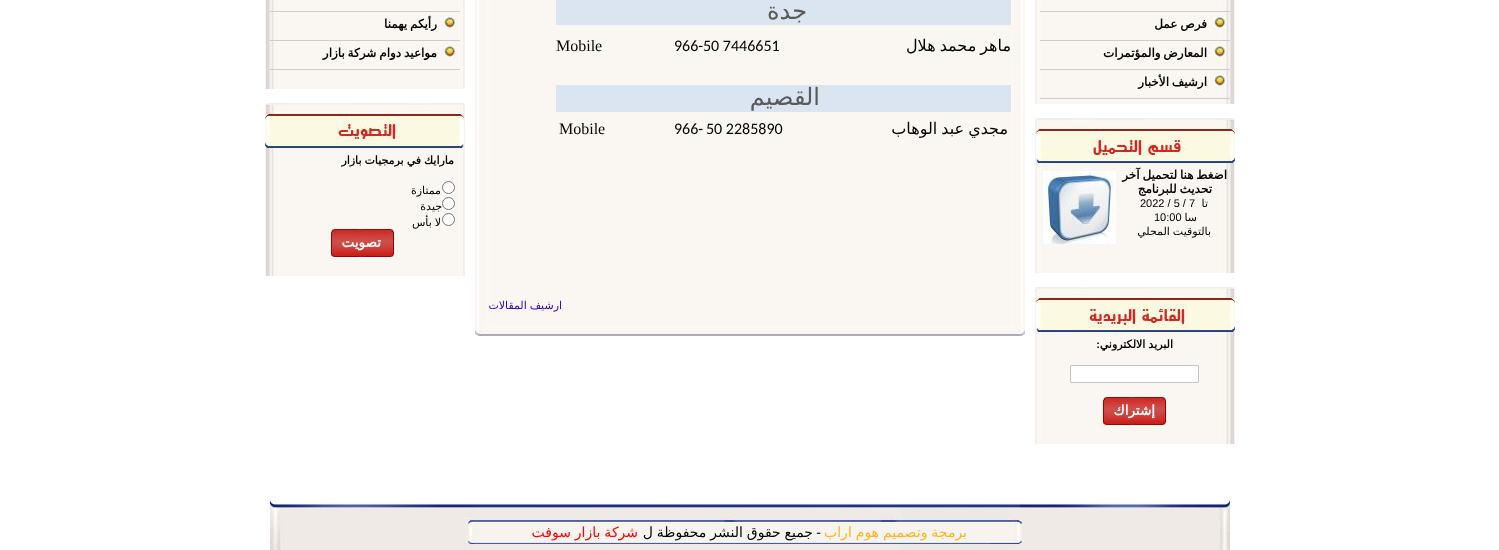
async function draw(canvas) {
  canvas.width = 1499;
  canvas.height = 550;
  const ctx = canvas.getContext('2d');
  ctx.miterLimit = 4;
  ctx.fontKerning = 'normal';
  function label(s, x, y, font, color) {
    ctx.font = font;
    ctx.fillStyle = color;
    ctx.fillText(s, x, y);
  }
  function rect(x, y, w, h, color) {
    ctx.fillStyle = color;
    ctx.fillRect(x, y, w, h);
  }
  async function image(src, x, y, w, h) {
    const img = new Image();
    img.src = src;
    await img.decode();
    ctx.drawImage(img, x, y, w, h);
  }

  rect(0, 0, 1499, 550, '#fff');
  await image('assets/img1.png', 1035, 0, 200, 104);
  rect(1040, 11, 190, 1, '#ccc');
  rect(1040, 40, 190, 1, '#ccc');
  await image('assets/img2.png', 1214, 17, 11, 11);
  ctx.wordSpacing = '-1px';
  ctx.direction = 'rtl';
  label('فرص عمل', 1207, 28, 'bold 12px DejaVu Sans', '#000');
  rect(1040, 69, 190, 1, '#ccc');
  await image('assets/img2.png', 1214, 46, 11, 11);
  label('المعارض والمؤتمرات', 1207, 57, 'bold 12px DejaVu Sans', '#000');
  rect(1040, 98, 190, 1, '#ccc');
  await image('assets/img2.png', 1214, 75, 11, 11);
  label('ارشيف الأخبار', 1207, 86, 'bold 12px DejaVu Sans', '#000');
  await image('assets/img3.png', 1035, 118, 200, 45);
  await image('assets/img4.png', 1035, 163, 200, 110);
  label('اضغط هنا لتحميل آخر', 1227, 179, 'bold 12px DejaVu Sans', '#000');
  await image('assets/img5.png', 1043, 171, 73, 73);
  label('تحديث للبرنامج', 1212, 193, 'bold 12px DejaVu Sans', '#000');
  ctx.wordSpacing = '0px';
  label('تا', 1208, 207, '11px DejaVu Sans', '#000');
  ctx.direction = 'ltr';
  label('2022 / 5 / 7', 1140, 207, '11px Liberation Sans', '#000');
  ctx.direction = 'rtl';
  label('سا', 1197, 221, '11px DejaVu Sans', '#000');
  ctx.direction = 'ltr';
  label('10:00', 1154, 221, '11px Liberation Sans', '#000');
  ctx.wordSpacing = '-0.5px';
  ctx.direction = 'rtl';
  label('بالتوقيت المحلي', 1211, 235, '11px DejaVu Sans', '#000');
  await image('assets/img6.png', 1035, 287, 200, 45);
  await image('assets/img7.png', 1035, 332, 200, 112);
  label('البريد الالكتروني', 1173, 348, 'bold 11px DejaVu Sans', '#000');
  ctx.wordSpacing = '0px';
  label(':', 1100, 348, 'bold 11px Liberation Sans', '#000');
  ctx.fillStyle = '#fff';
  ctx.beginPath();
  ctx.rect(1070.5, 365.5, 128, 17);
  ctx.fill();
  ctx.strokeStyle = '#c5c5c5';
  ctx.stroke();
  await image('assets/img8.png', 1103, 397, 63, 28);
  label('إشتراك', 1155, 415, 'bold 13.5px DejaVu Sans', '#fff');
  await image('assets/img9.png', 475, 0, 550, 326);
  rect(556, 0, 455, 25, '#dbe5f1');
  label('جدة', 807, 19, '24px DejaVu Sans', '#5a5a5a');
  ctx.wordSpacing = '-1px';
  label('ماهر محمد هلال', 1011, 51, '16px DejaVu Sans', '#000');
  ctx.wordSpacing = '0px';
  ctx.direction = 'ltr';
  label('50 7446651', 703, 51, '16px Carlito', '#000');
  label('966-', 674, 51, '16px Carlito', '#000');
  label('Mobile', 556, 51, '16px Liberation Serif', '#000');
  rect(556, 85, 455, 27, '#dbe5f1');
  ctx.direction = 'rtl';
  label('القصيم', 820, 105, '24px DejaVu Sans', '#5a5a5a');
  ctx.wordSpacing = '-1px';
  label('مجدي عبد الوهاب', 1008, 134, '16px DejaVu Sans', '#000');
  ctx.wordSpacing = '0px';
  ctx.direction = 'ltr';
  label('50 2285890', 706, 134, '16px Carlito', '#000');
  label('966-', 674, 134, '16px Carlito', '#000');
  label('Mobile', 559, 134, '16px Liberation Serif', '#000');
  ctx.wordSpacing = '-0.5px';
  ctx.direction = 'rtl';
  label('ارشيف المقالات', 562, 309, '11px DejaVu Sans', '#30c');
  await image('assets/img10.png', 475, 326, 550, 10);
  await image('assets/img11.png', 265, 0, 200, 89);
  rect(270, 11, 190, 1, '#ccc');
  rect(270, 40, 190, 1, '#ccc');
  await image('assets/img2.png', 444, 17, 11, 11);
  ctx.wordSpacing = '-1px';
  label('رأيكم يهمنا', 437, 28, 'bold 12px DejaVu Sans', '#000');
  rect(270, 69, 190, 1, '#ccc');
  await image('assets/img2.png', 444, 46, 11, 11);
  label('مواعيد دوام شركة بازار', 437, 57, 'bold 12px DejaVu Sans', '#000');
  await image('assets/img12.png', 265, 103, 200, 45);
  await image('assets/img13.png', 265, 148, 200, 128);
  ctx.wordSpacing = '-0.5px';
  label('مارايك في برمجيات بازار', 454, 164, 'bold 11px DejaVu Sans', '#000');
  ctx.fillStyle = '#fff';
  ctx.beginPath();
  ctx.arc(448.5, 187.5, 6, 0, 2 * Math.PI);
  ctx.fill();
  ctx.strokeStyle = '#767676';
  ctx.stroke();
  ctx.wordSpacing = '0px';
  label('ممتازة', 441, 194, '11px DejaVu Sans', '#000');
  ctx.fillStyle = '#fff';
  ctx.beginPath();
  ctx.arc(448.5, 203.5, 6, 0, 2 * Math.PI);
  ctx.fill();
  ctx.stroke();
  label('جيدة', 442, 210, '11px DejaVu Sans', '#000');
  ctx.fillStyle = '#fff';
  ctx.beginPath();
  ctx.arc(448.5, 219.5, 6, 0, 2 * Math.PI);
  ctx.fill();
  ctx.stroke();
  ctx.wordSpacing = '-0.5px';
  label('لا بأس', 441, 226, '11px DejaVu Sans', '#000');
  await image('assets/img8.png', 331, 229, 63, 28);
  ctx.wordSpacing = '0px';
  label('تصويت', 381, 247, 'bold 13.5px DejaVu Sans', '#fff');
  await image('assets/img14.png', 270, 500, 960, 50);
  ctx.wordSpacing = '-0.5px';
  label('برمجة وتصميم هوم اراب', 967, 537, '14px DejaVu Sans', '#fcb41f');
  ctx.wordSpacing = '0px';
  label('-', 821, 537, '14px Liberation Sans', '#000');
  ctx.wordSpacing = '-0.5px';
  label('جميع حقوق النشر محفوظة ل', 813, 537, '14px DejaVu Sans', '#000');
  label('شركة بازار سوفت', 638, 537, '14px DejaVu Sans', '#f00');
}

draw(document.querySelector('canvas'));
